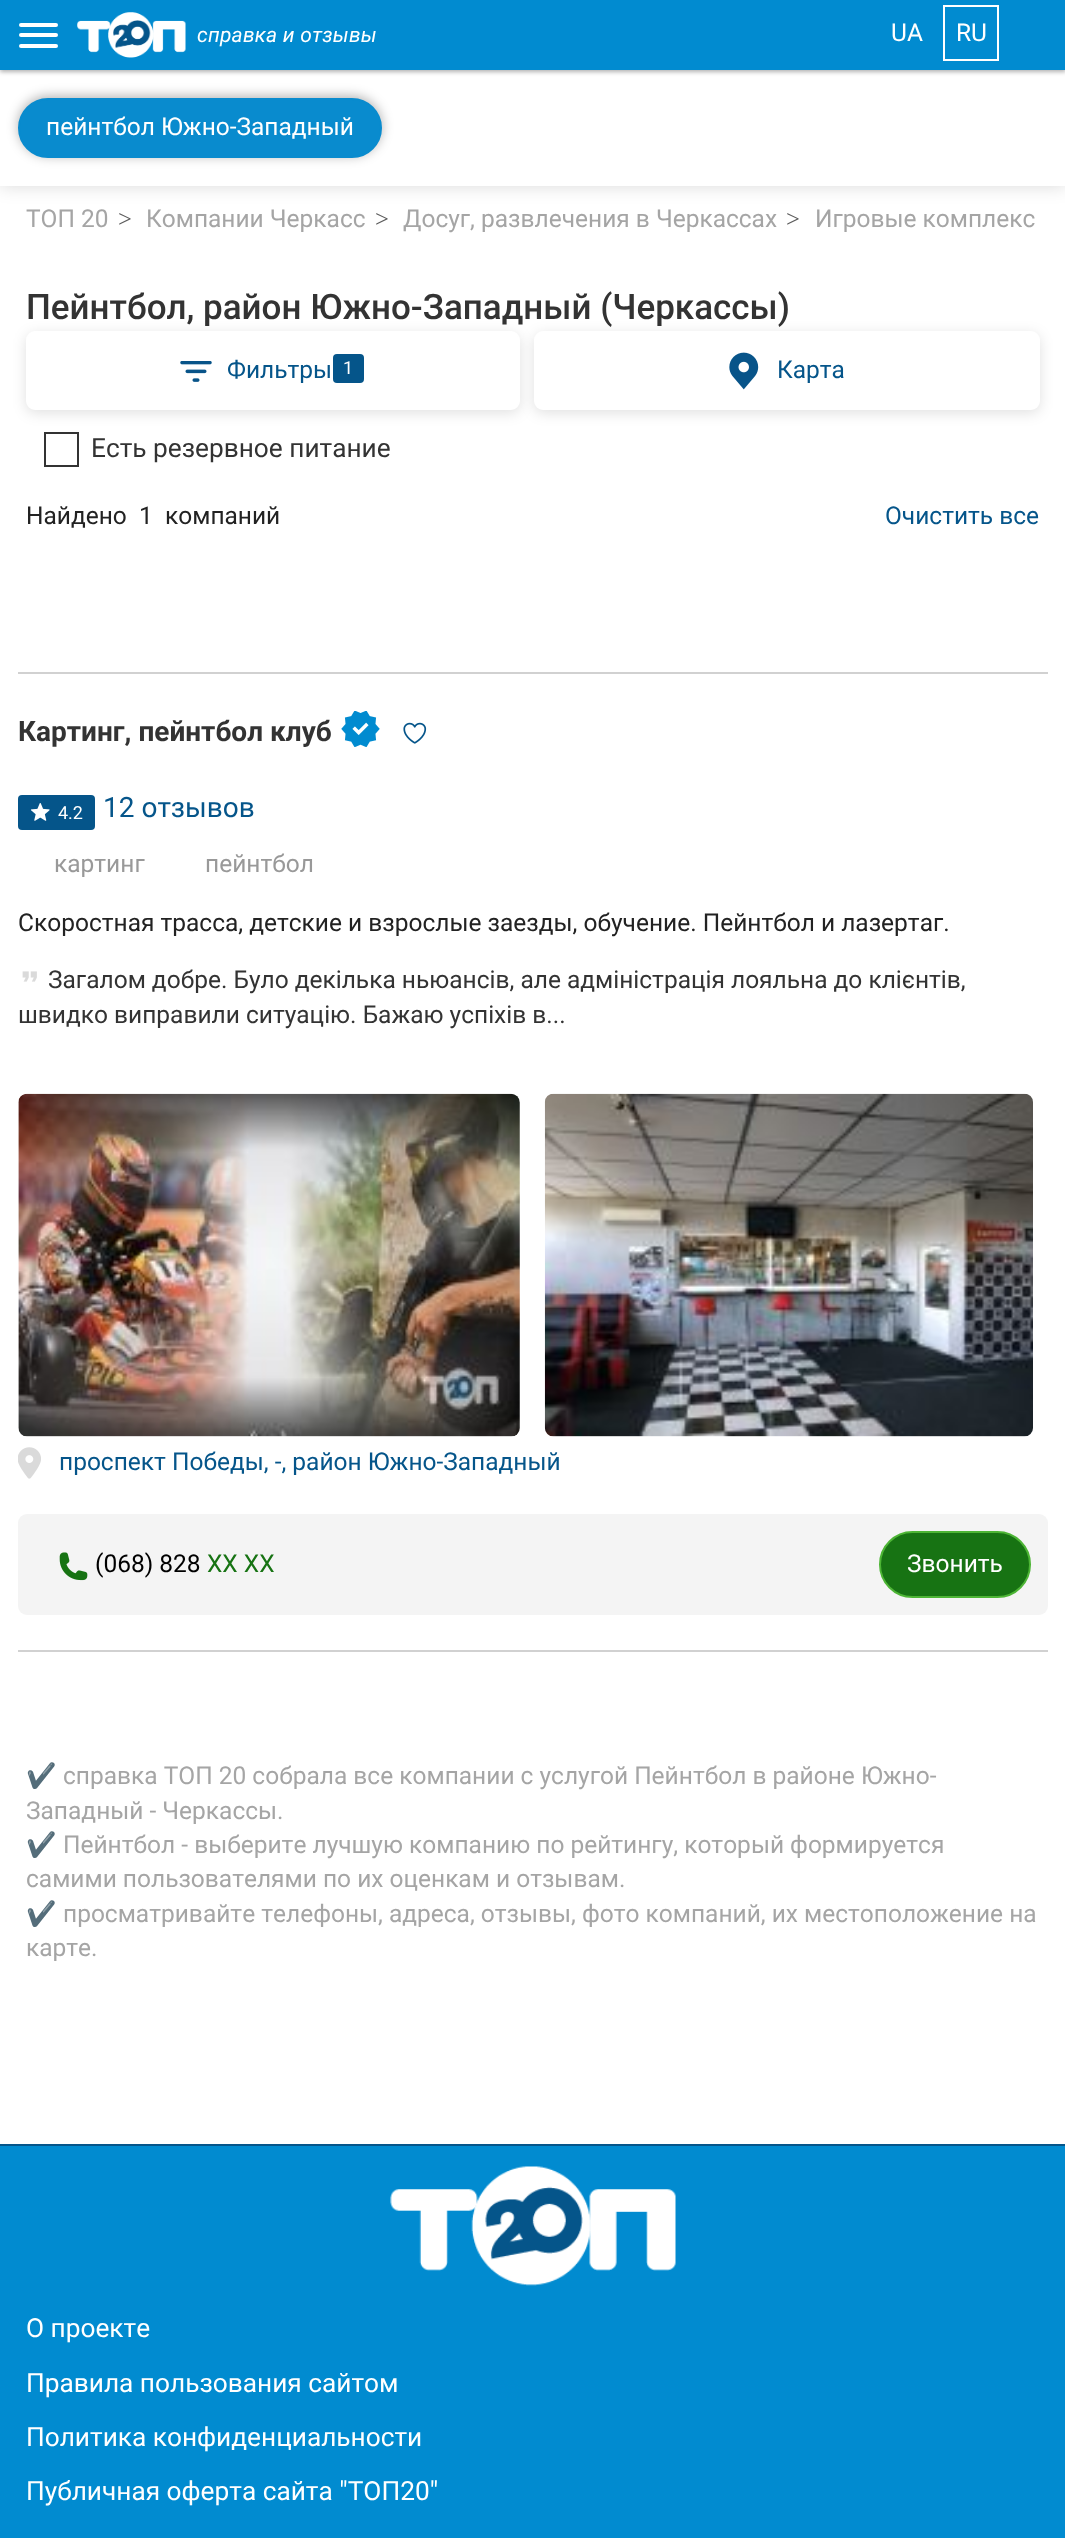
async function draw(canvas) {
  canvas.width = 1065;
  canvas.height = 2538;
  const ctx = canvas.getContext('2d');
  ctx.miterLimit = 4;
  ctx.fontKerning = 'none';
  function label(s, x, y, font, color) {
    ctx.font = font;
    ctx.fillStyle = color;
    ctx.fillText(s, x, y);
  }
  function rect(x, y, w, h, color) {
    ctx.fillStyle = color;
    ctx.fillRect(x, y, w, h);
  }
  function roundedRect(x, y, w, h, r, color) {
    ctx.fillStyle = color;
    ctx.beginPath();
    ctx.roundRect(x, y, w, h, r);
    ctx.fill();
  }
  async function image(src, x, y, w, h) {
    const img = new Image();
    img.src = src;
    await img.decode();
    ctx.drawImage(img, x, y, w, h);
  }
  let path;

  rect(0, 0, 1065, 2538, '#fff');
  ctx.fillStyle = '#0000004d';
  ctx.filter = 'blur(2px)';
  ctx.beginPath();
  ctx.rect(0, 2, 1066, 70);
  ctx.fill();
  ctx.filter = 'none';
  ctx.save();
  path = new Path2D('M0 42H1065V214H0ZM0 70H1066V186H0Z');
  ctx.clip(path, 'evenodd');
  ctx.fillStyle = '#00000026';
  ctx.filter = 'blur(9px)';
  ctx.beginPath();
  ctx.rect(0, 70, 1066, 116);
  ctx.fill();
  ctx.filter = 'none';
  ctx.restore();
  rect(0, 0, 1065, 70, '#018bd0');
  roundedRect(19, 23, 39, 4, 2, '#fff');
  roundedRect(19, 33, 39, 4, 2, '#fff');
  roundedRect(19, 44, 39, 4, 2, '#fff');
  await image('assets/img1.png', 77, 12, 109, 46);
  ctx.letterSpacing = '0.25px';
  label('справка и отзывы', 197, 42, 'italic 21px Roboto', '#fff');
  ctx.letterSpacing = '0px';
  label('UA', 891, 41, '24.5px Roboto', '#fff');
  ctx.strokeStyle = '#fff';
  ctx.lineWidth = 2;
  ctx.strokeRect(944, 6, 54, 54);
  label('RU', 956, 41, '24.5px Roboto', '#fff');
  ctx.fillStyle = '#0000004d';
  ctx.filter = 'blur(6px)';
  ctx.beginPath();
  ctx.roundRect(18, 96, 364, 60, 30);
  ctx.fill();
  ctx.filter = 'none';
  ctx.fillStyle = '#098bce';
  ctx.beginPath();
  ctx.roundRect(19, 99, 362, 58, 29);
  ctx.fill();
  ctx.strokeStyle = '#098bce';
  ctx.stroke();
  label('пейнтбол Южно-Западный', 46, 135, '24.5px Roboto', '#fff');
  label('ТОП 20', 26, 227, '24.5px Roboto', '#a5a5a5');
  label('>', 118, 227, '24.5px Liberation Serif', '#5c5c5c');
  label('Компании Черкасс', 146, 227, '24.5px Roboto', '#a5a5a5');
  label('>', 375, 227, '24.5px Liberation Serif', '#5c5c5c');
  label('Досуг, развлечения в Черкассах', 403, 227, '24.5px Roboto', '#a5a5a5');
  label('>', 786, 227, '24.5px Liberation Serif', '#5c5c5c');
  label('Игровые комплекс', 815, 227, '24.5px Roboto', '#a5a5a5');
  label('Пейнтбол, район Южно-Западный (Черкассы)', 26, 319, '500 35px Roboto', '#333');
  ctx.fillStyle = '#0000001f';
  ctx.filter = 'blur(7px)';
  ctx.beginPath();
  ctx.roundRect(534, 334, 506, 79, 9);
  ctx.fill();
  ctx.filter = 'none';
  roundedRect(534, 331, 506, 79, 9, '#fff');
  ctx.fillStyle = '#0000001f';
  ctx.filter = 'blur(7px)';
  ctx.beginPath();
  ctx.roundRect(26, 334, 494, 79, 9);
  ctx.fill();
  ctx.filter = 'none';
  ctx.fillStyle = '#fff';
  ctx.beginPath();
  ctx.roundRect(27, 332, 492, 77, 8);
  ctx.fill();
  ctx.strokeStyle = '#fff';
  ctx.stroke();
  await image('assets/img2.png', 180, 361, 32, 21);
  label('Фильтры', 227, 378, '24.5px Roboto', '#05558a');
  roundedRect(333, 354, 31, 29, 4, '#05558a');
  label('1', 343, 374, '18px Roboto', '#fff');
  await image('assets/img3.png', 729, 352, 30, 38);
  label('Карта', 777, 378, '24.5px Roboto', '#05558a');
  ctx.strokeStyle = '#333';
  ctx.strokeRect(45, 433, 33, 33);
  label('Есть резервное питание', 91, 457, '26.25px Roboto', '#333');
  label('Найдено', 26, 524, '24.5px Roboto', '#222');
  label('1', 139, 524, '24.5px Roboto', '#222');
  label('компаний', 165, 524, '24.5px Roboto', '#222');
  label('Очистить все', 885, 524, '24.5px Roboto', '#05558a');
  rect(18, 672, 1030, 2, '#d1d1d1');
  rect(18, 1650, 1030, 2, '#d1d1d1');
  label('Картинг, пейнтбол клуб', 18, 741, 'bold 28px Roboto', '#333');
  await image('assets/img4.png', 341, 711, 39, 36);
  await image('assets/img5.png', 403, 722, 24, 22);
  roundedRect(18, 795, 77, 35, 4, '#05558a');
  await image('assets/img6.png', 30, 803, 20, 18);
  label('4.2', 58, 819, '18px Roboto', '#fff');
  label('12 отзывов', 103, 817, '28px Roboto', '#05558a');
  label('картинг', 54, 872, '24.5px Roboto', '#999');
  label('пейнтбол', 205, 872, '24.5px Roboto', '#999');
  label('Скоростная трасса, детские и взрослые заезды, обучение. Пейнтбол и лазертаг.', 18, 931, '24.5px Roboto', '#222');
  await image('assets/img7.png', 22, 971, 15, 11);
  label('Загалом добре. Було декілька ньюансів, але адміністрація лояльна до клієнтів,', 48, 988, '24.5px Roboto', '#333');
  label('швидко виправили ситуацію. Бажаю успіхів в...', 18, 1023, '24.5px Roboto', '#333');
  await image('assets/img8.png', 18, 1093, 502, 344);
  await image('assets/img9.png', 544, 1093, 489, 344);
  await image('assets/img10.png', 18, 1447, 23, 32);
  label('проспект Победы, -, район Южно-Западный', 59, 1470, '24.5px Roboto', '#05558a');
  roundedRect(18, 1514, 1030, 101, 9, '#f4f4f4');
  await image('assets/img11.png', 59, 1552, 29, 29);
  label('(068) 828', 95, 1572, '24.5px Roboto', '#000');
  label('XX XX', 207, 1572, '24.5px Roboto', '#177313');
  ctx.beginPath();
  ctx.roundRect(880, 1532, 150, 65, 32.5);
  ctx.fill();
  ctx.strokeStyle = '#4db535';
  ctx.stroke();
  label('Звонить', 907, 1572, '24.5px Roboto', '#fff');
  label('✔', 26, 1784, '24.5px Noto Color Emoji', '#a5a5a5');
  label('справка ТОП 20 собрала все компании с услугой Пейнтбол в районе Южно-', 63, 1784, '24.5px Roboto', '#a5a5a5');
  label('Западный - Черкассы.', 26, 1819, '24.5px Roboto', '#a5a5a5');
  label('✔', 26, 1853, '24.5px Noto Color Emoji', '#a5a5a5');
  label('Пейнтбол - выберите лучшую компанию по рейтингу, который формируется', 63, 1853, '24.5px Roboto', '#a5a5a5');
  label('самими пользователями по их оценкам и отзывам.', 26, 1887, '24.5px Roboto', '#a5a5a5');
  label('✔', 26, 1922, '24.5px Noto Color Emoji', '#a5a5a5');
  label('просматривайте телефоны, адреса, отзывы, фото компаний, их местоположение на', 63, 1922, '24.5px Roboto', '#a5a5a5');
  label('карте.', 26, 1956, '24.5px Roboto', '#a5a5a5');
  rect(0, 2146, 1065, 392, '#018bd0');
  rect(0, 2144, 1065, 2, '#05558a');
  await image('assets/img12.png', 390, 2166, 286, 120);
  label('O проекте', 26, 2337, '26.25px Roboto', '#fff');
  label('Правила пользования сайтом', 26, 2392, '26.25px Roboto', '#fff');
  label('Политика конфиденциальности', 26, 2446, '26.25px Roboto', '#fff');
  label('Публичная оферта сайта "ТОП20"', 26, 2500, '26.25px Roboto', '#fff');
}

draw(document.querySelector('canvas'));
